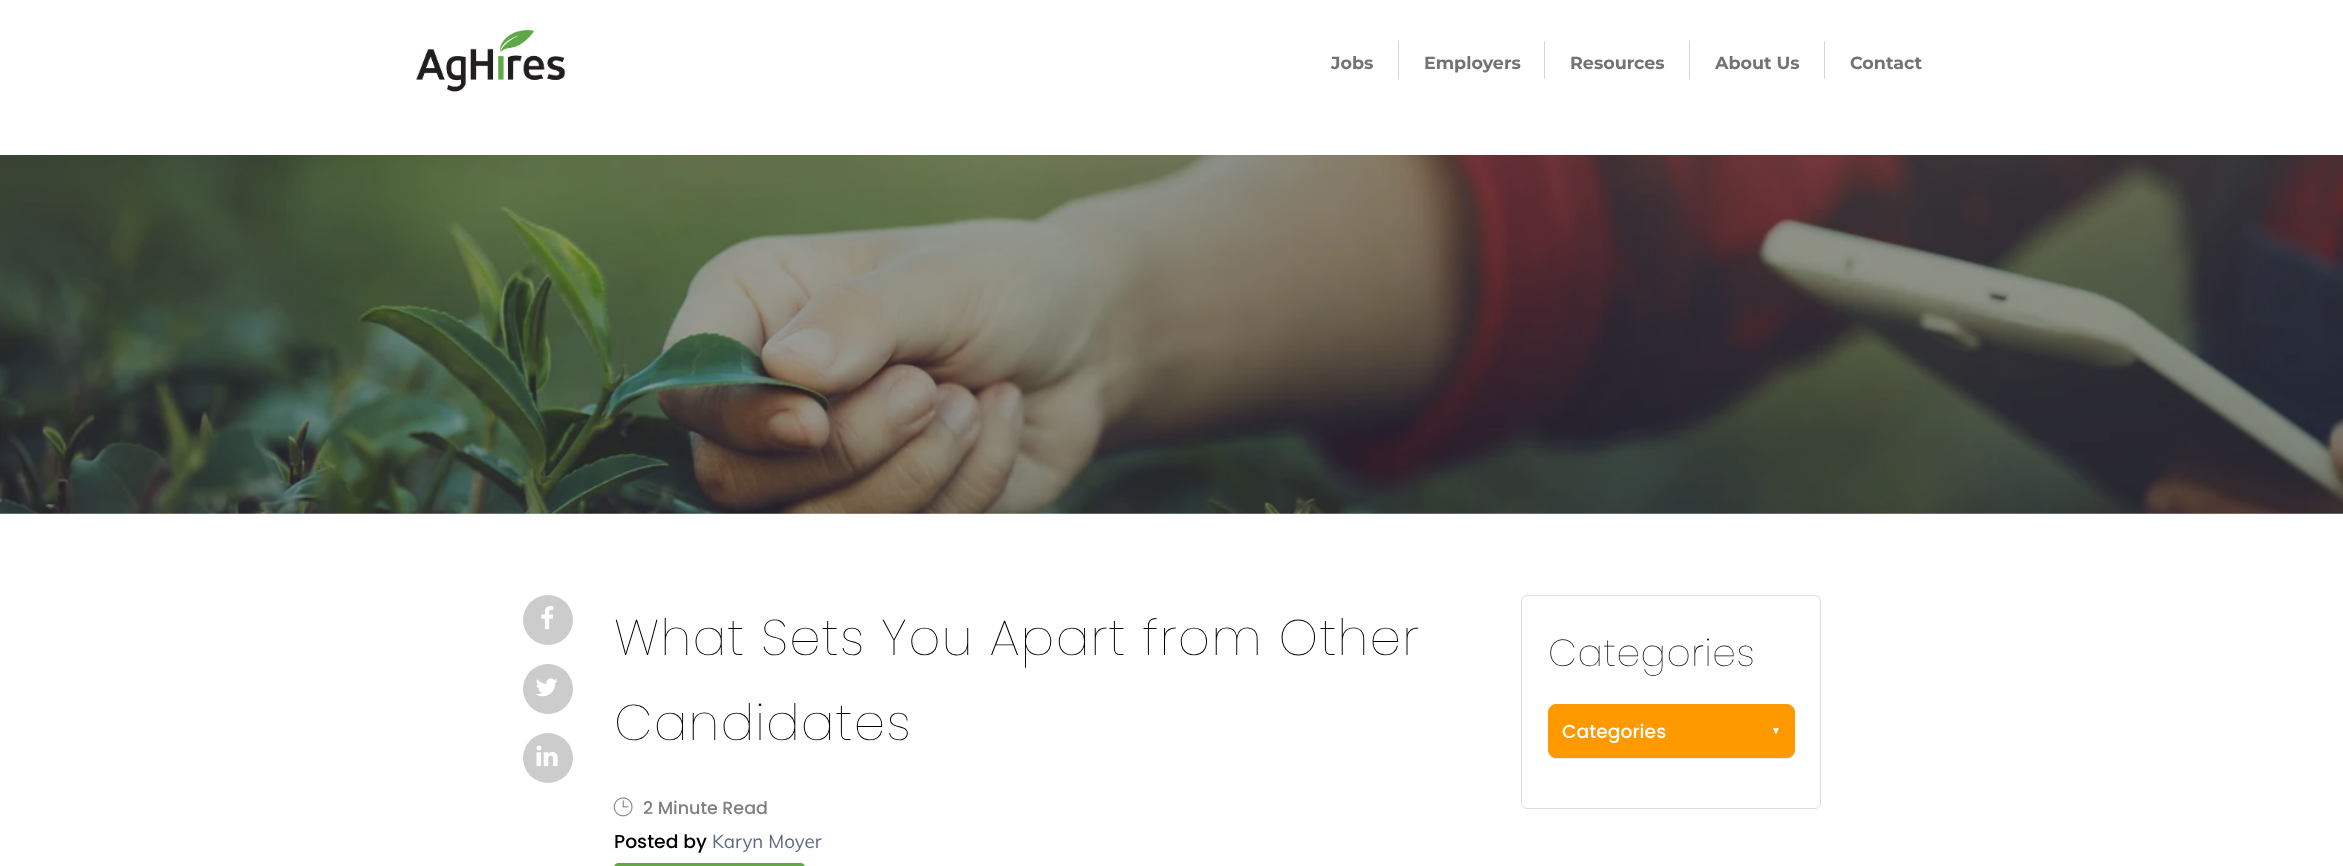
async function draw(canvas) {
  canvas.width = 2343;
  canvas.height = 866;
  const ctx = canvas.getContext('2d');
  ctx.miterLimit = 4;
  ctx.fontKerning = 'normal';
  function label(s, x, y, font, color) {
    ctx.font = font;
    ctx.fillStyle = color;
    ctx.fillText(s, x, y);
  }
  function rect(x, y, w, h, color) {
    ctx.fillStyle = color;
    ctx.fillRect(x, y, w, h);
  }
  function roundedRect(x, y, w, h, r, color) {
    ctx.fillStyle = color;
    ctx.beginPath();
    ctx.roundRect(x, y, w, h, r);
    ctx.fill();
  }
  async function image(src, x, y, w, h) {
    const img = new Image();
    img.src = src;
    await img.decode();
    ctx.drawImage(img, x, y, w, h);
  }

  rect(0, 0, 2343, 866, '#fff');
  await image('assets/img1.png', 416, 30, 150, 62);
  label('Jobs', 1331, 69, 'bold 17.5px Montserrat', '#737373');
  rect(1398, 41, 1, 38, '#d5d5d5');
  label('Employers', 1424, 69, 'bold 17.5px Montserrat', '#737373');
  rect(1544, 41, 1, 38, '#d5d5d5');
  label('Resources', 1570, 69, 'bold 17.5px Montserrat', '#737373');
  rect(1689, 41, 1, 38, '#d5d5d5');
  label('About Us', 1715, 69, 'bold 17.5px Montserrat', '#737373');
  rect(1824, 41, 1, 38, '#d5d5d5');
  label('Contact', 1850, 69, 'bold 17.5px Montserrat', '#737373');
  await image('assets/img2.png', 0, 155, 2343, 359);
  ctx.fillStyle = '#ccc';
  ctx.beginPath();
  ctx.arc(548, 620, 25, 0, 2 * Math.PI);
  ctx.fill();
  await image('assets/img3.png', 541, 606, 13, 24);
  ctx.beginPath();
  ctx.arc(548, 689, 25, 0, 2 * Math.PI);
  ctx.fill();
  await image('assets/img4.png', 536, 678, 22, 19);
  ctx.beginPath();
  ctx.arc(548, 758, 25, 0, 2 * Math.PI);
  ctx.fill();
  await image('assets/img5.png', 536, 745, 22, 22);
  ctx.letterSpacing = '1.25px';
  label('What Sets You Apart from Other', 614, 655, '100 50px Poppins', '#000');
  label('Candidates', 614, 740, '100 50px Poppins', '#000');
  await image('assets/img6.png', 613, 797, 20, 20);
  ctx.letterSpacing = '0px';
  label('2 Minute Read', 643, 814, '500 17.5px Poppins', '#808080');
  label('Posted by', 614, 848, '500 18.75px Poppins', '#000');
  label('Karyn Moyer', 712, 848, '18.75px Muli', '#5b6a81');
  roundedRect(614, 863, 191, 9, 6, '#64a845');
  ctx.beginPath();
  ctx.roundRect(1521.5, 595.5, 299, 213, 5.5);
  ctx.strokeStyle = '#ddd';
  ctx.stroke();
  ctx.letterSpacing = '0.6px';
  label('Categories', 1548, 666, '100 37.5px Poppins', '#000');
  ctx.fillStyle = '#3232321a';
  ctx.filter = 'blur(0.5px)';
  ctx.beginPath();
  ctx.roundRect(1548, 705, 247, 54, 8);
  ctx.fill();
  ctx.filter = 'none';
  ctx.fillStyle = '#f90';
  ctx.beginPath();
  ctx.roundRect(1548.5, 704.5, 246, 53, 7.5);
  ctx.fill();
  ctx.strokeStyle = '#f90';
  ctx.stroke();
  ctx.letterSpacing = '0px';
  label('Categories', 1562, 738, '500 18.75px Poppins', '#fff');
  label('▼', 1771, 734, '10px Liberation Serif', '#fff');
}

draw(document.querySelector('canvas'));
